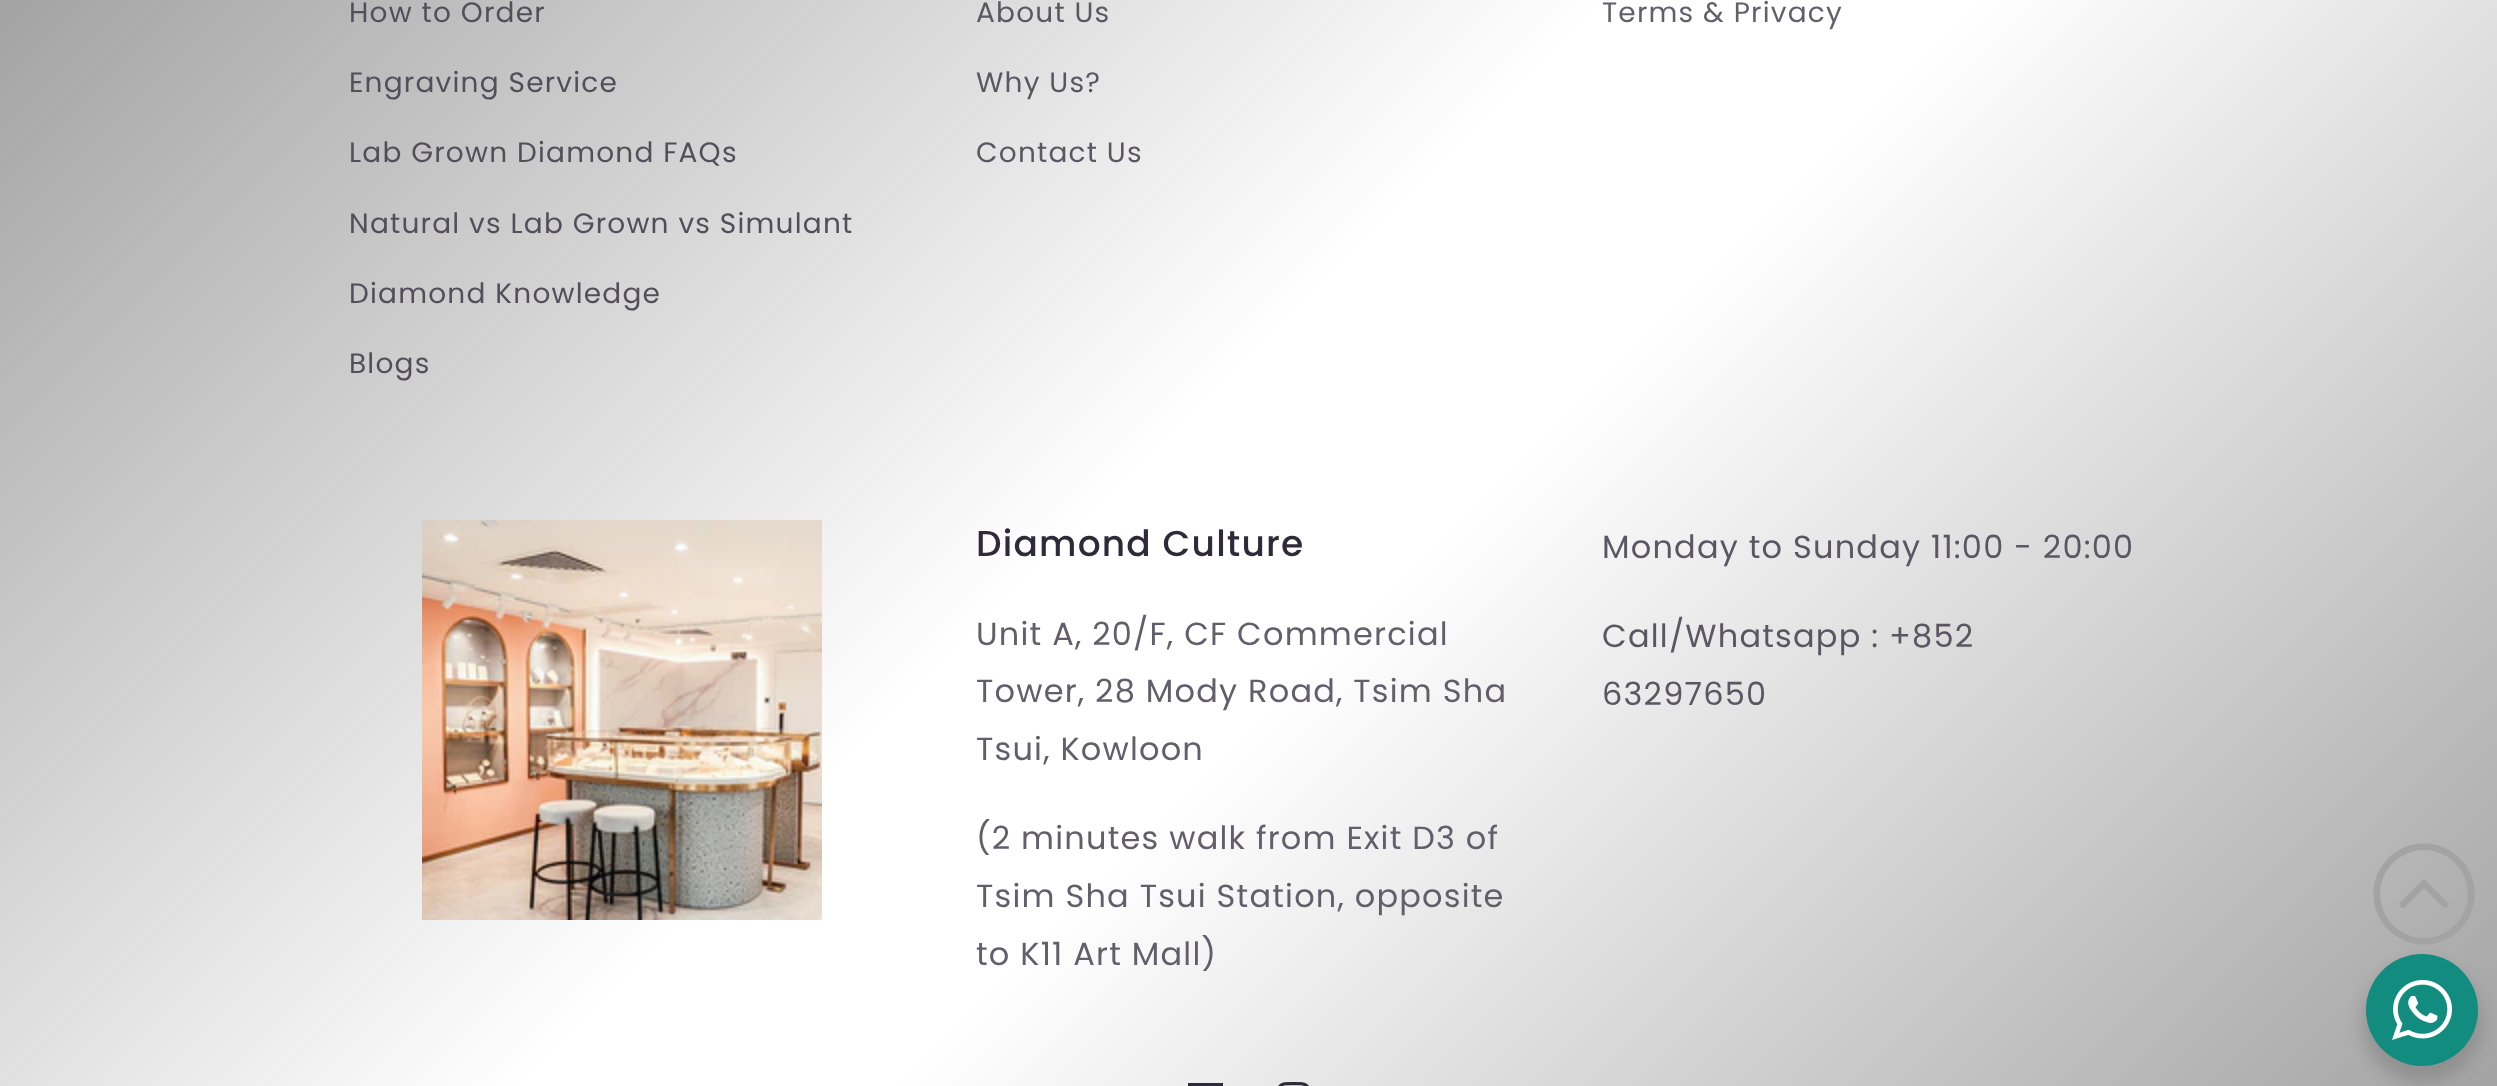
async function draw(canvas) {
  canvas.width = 2497;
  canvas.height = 1086;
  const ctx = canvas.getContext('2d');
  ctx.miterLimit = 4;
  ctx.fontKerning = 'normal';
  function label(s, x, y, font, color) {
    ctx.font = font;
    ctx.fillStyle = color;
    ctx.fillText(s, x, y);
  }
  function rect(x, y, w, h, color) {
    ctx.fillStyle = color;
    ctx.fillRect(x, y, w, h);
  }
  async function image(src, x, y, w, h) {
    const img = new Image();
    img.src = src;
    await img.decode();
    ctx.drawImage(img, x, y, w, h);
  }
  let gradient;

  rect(0, 0, 2497, 1086, '#fff');
  gradient = ctx.createLinearGradient(353, -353, 2145, 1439);
  gradient.addColorStop(0, '#a3a3a3');
  gradient.addColorStop(0.45, '#fff');
  gradient.addColorStop(0.55, '#fff');
  gradient.addColorStop(1, '#a3a3a3');
  ctx.fillStyle = gradient;
  ctx.fillRect(0, 0, 2497, 1086);
  ctx.letterSpacing = '1.2px';
  label('How to Order', 349, 22, '28px Poppins', '#524f5a');
  label('Engraving Service', 349, 92, '28px Poppins', '#524f5a');
  label('Lab Grown Diamond FAQs', 349, 162, '28px Poppins', '#524f5a');
  label('Natural vs Lab Grown vs Simulant', 349, 233, '28px Poppins', '#524f5a');
  label('Diamond Knowledge', 349, 303, '28px Poppins', '#524f5a');
  label('Blogs', 349, 373, '28px Poppins', '#524f5a');
  label('About Us', 976, 22, '28px Poppins', '#5a5763');
  label('Why Us?', 976, 92, '28px Poppins', '#5a5763');
  label('Contact Us', 976, 162, '28px Poppins', '#5a5763');
  label('Terms & Privacy', 1602, 22, '28px Poppins', '#625f6b');
  await image('assets/img1.png', 422, 520, 400, 400);
  label('Diamond Culture', 976, 556, '500 36px Poppins', '#2e2a39');
  label('Unit A, 20/F, CF Commercial', 976, 645, '32px Poppins', '#625f6b');
  label('Tower, 28 Mody Road, Tsim Sha', 976, 702, '32px Poppins', '#625f6b');
  label('Tsui, Kowloon', 976, 760, '32px Poppins', '#625f6b');
  label('(2 minutes walk from Exit D3 of', 976, 849, '32px Poppins', '#625f6b');
  label('Tsim Sha Tsui Station, opposite', 976, 907, '32px Poppins', '#625f6b');
  label('to K11 Art Mall)', 976, 965, '32px Poppins', '#625f6b');
  label('Monday to Sunday 11:00 - 20:00', 1602, 558, '32px Poppins', '#5a5763');
  label('Call/Whatsapp : +852', 1602, 647, '32px Poppins', '#5a5763');
  label('63297650', 1602, 705, '32px Poppins', '#5a5763');
  rect(1188, 1083, 35, 3, '#2e2a39');
  await image('assets/img2.png', 1278, 1082, 31, 4);
  await image('assets/img3.png', 2373, 843, 102, 102);
  ctx.fillStyle = '#00000024';
  ctx.filter = 'blur(8px)';
  ctx.beginPath();
  ctx.roundRect(2362, 962, 120, 120, 60);
  ctx.fill();
  ctx.filter = 'none';
  ctx.fillStyle = '#128c7e';
  ctx.beginPath();
  ctx.arc(2422, 1010, 56, 0, 2 * Math.PI);
  ctx.fill();
  await image('assets/img4.png', 2392, 980, 60, 60);
}

draw(document.querySelector('canvas'));
